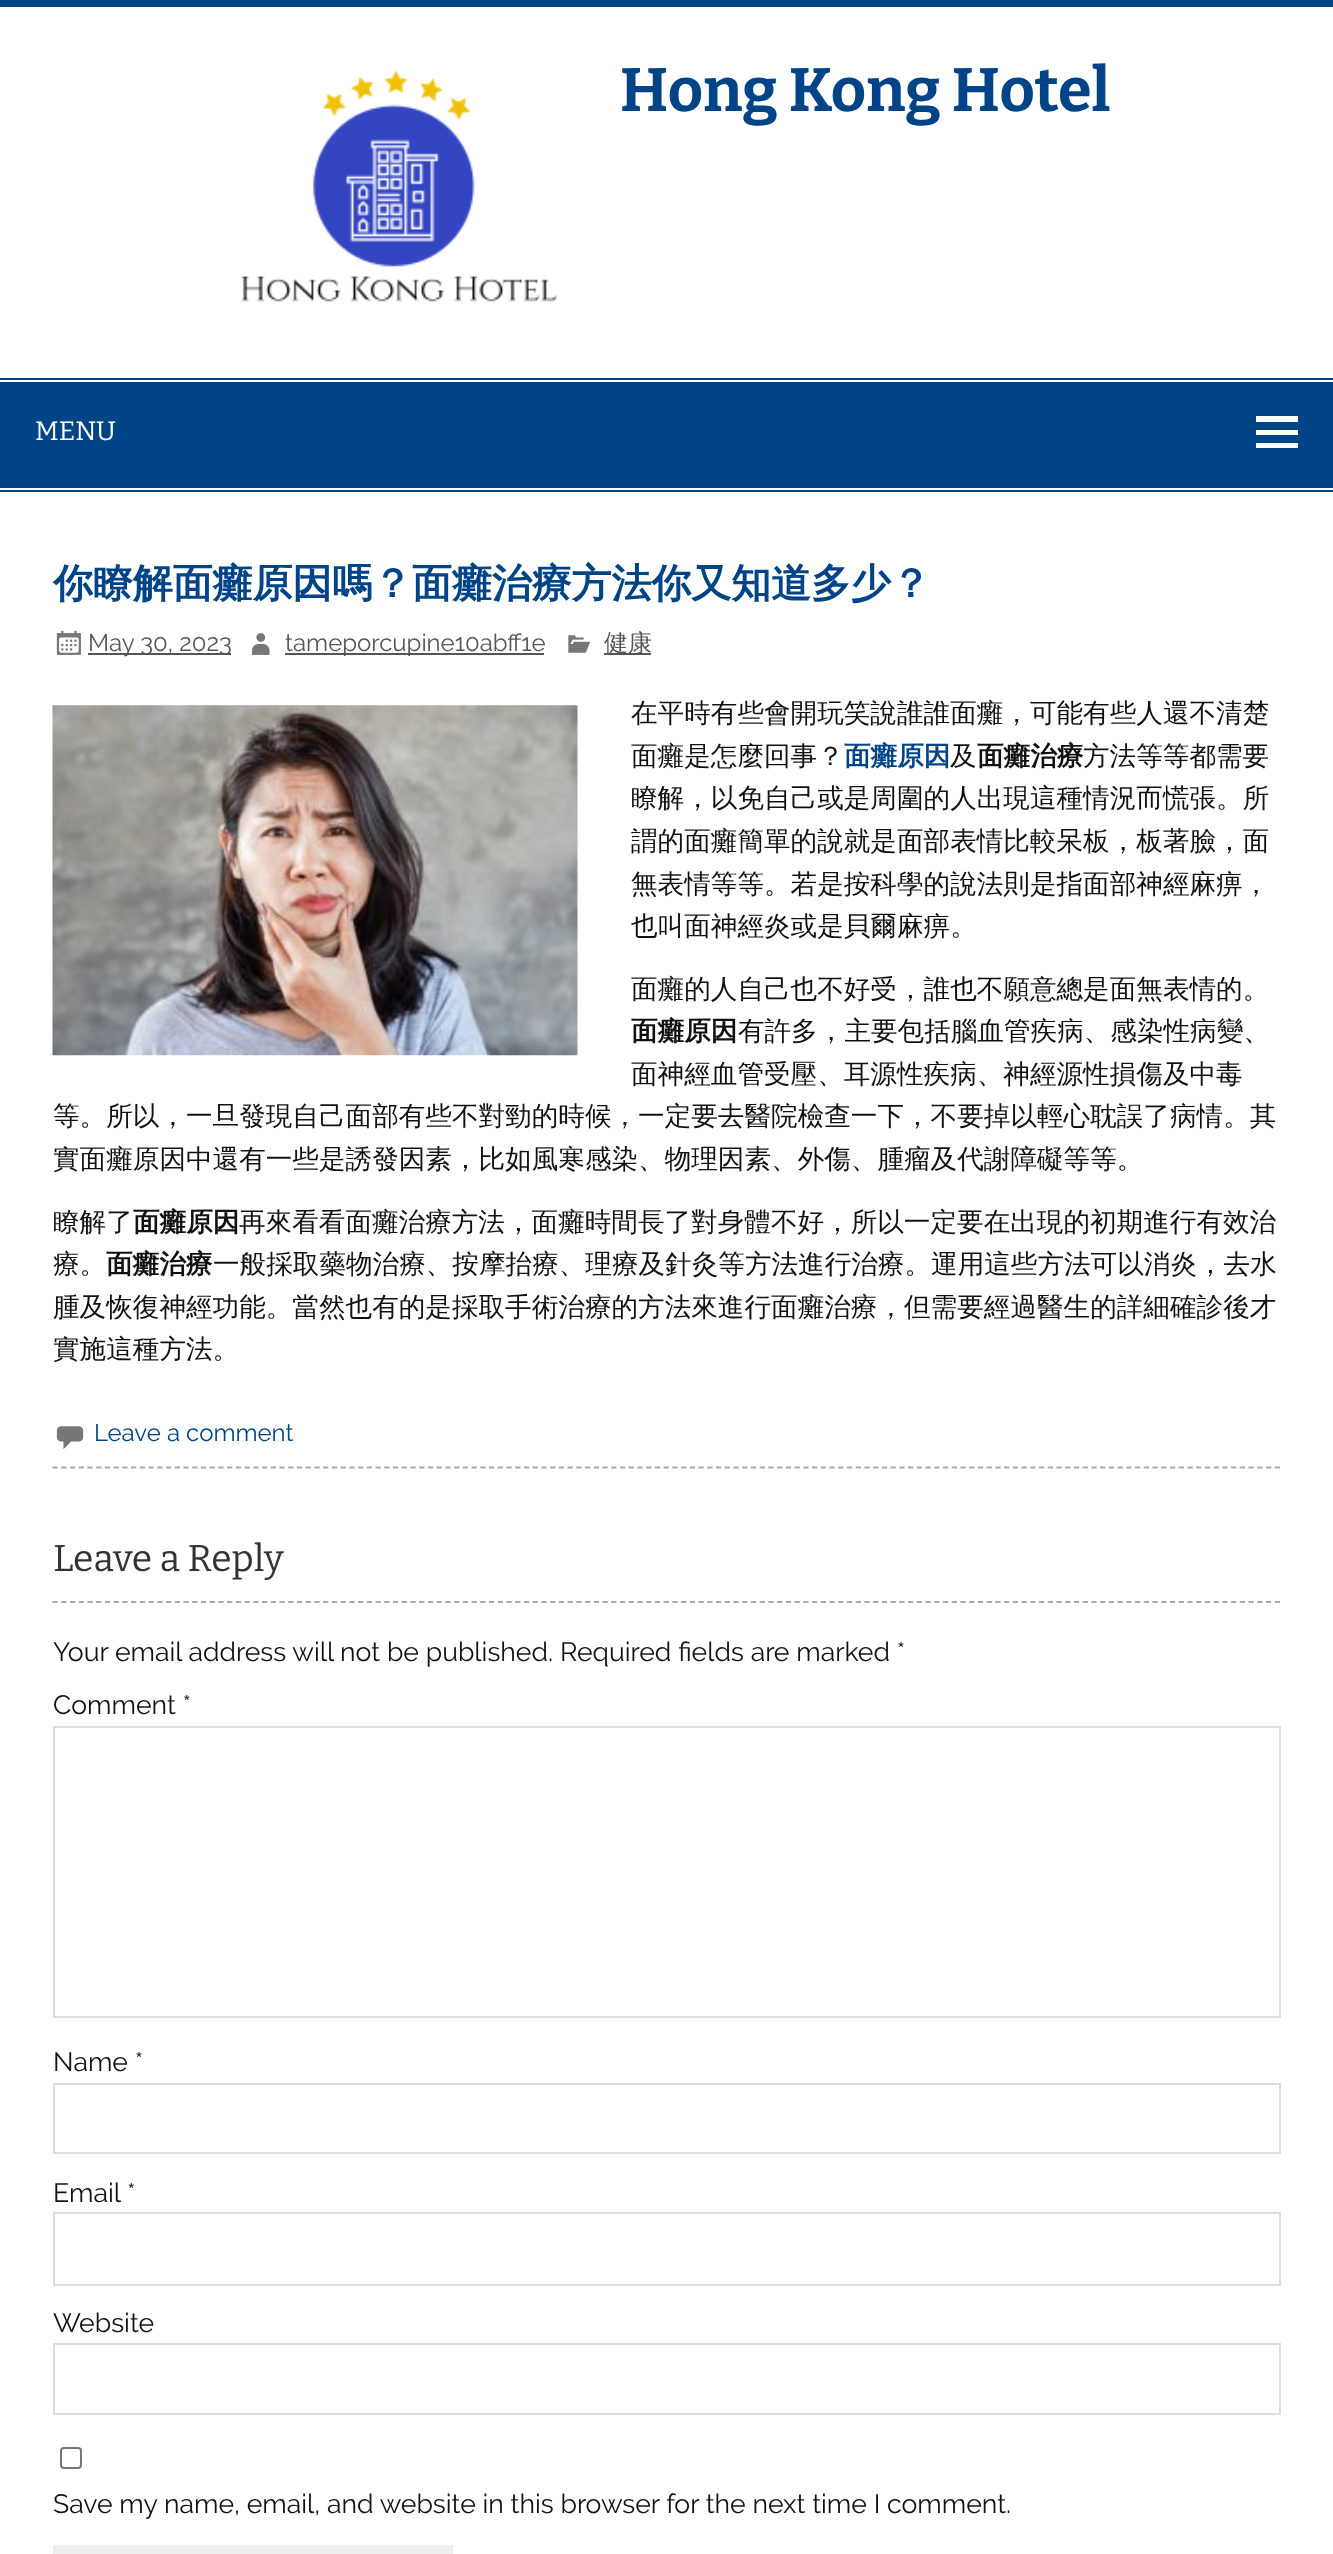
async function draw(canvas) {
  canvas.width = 1333;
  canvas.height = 2554;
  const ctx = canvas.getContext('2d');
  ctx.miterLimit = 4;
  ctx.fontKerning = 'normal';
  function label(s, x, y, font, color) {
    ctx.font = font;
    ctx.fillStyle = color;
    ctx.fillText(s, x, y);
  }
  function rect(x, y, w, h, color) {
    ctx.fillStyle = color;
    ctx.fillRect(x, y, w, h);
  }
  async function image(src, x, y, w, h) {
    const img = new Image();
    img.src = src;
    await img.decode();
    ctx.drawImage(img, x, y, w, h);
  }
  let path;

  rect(0, 0, 1333, 2554, '#fff');
  rect(0, 0, 1333, 7, '#048');
  await image('assets/img1.png', 241, 69, 316, 233);
  label('Hong Kong Hotel', 620, 111, 'bold 61.25px Bitter', '#048');
  rect(0, 378, 1333, 2, '#048');
  rect(0, 490, 1333, 2, '#048');
  rect(0, 382, 1333, 106, '#048');
  label('MENU', 35, 440, '26.6px Bitter', '#fff');
  path = new Path2D('M1256 448V443H1298V448ZM1256 416H1298V422H1256ZM1256 435V430H1298V435Z');
  ctx.fill(path);
  path = new Path2D('M52.5 1467.5H1281');
  ctx.strokeStyle = '#aaa';
  ctx.lineWidth = 1.8;
  ctx.setLineDash([5.25, 3.48]);
  ctx.stroke(path);
  label('你瞭解面癱原因嗎？面癱治療方法你又知道多少？', 53, 597, 'bold 39.9px WenQuanYi Zen Hei', '#048');
  await image('assets/img2.png', 56, 630, 25, 25);
  rect(88, 653, 143, 2, '#555');
  label('May 30, 2023', 88, 651, '24px Raleway', '#555');
  await image('assets/img3.png', 252, 633, 18, 22);
  rect(285, 653, 259, 2, '#555');
  label('tameporcupine10abff1e', 285, 651, '24px Raleway', '#555');
  await image('assets/img4.png', 568, 635, 23, 18);
  rect(604, 653, 47, 2, '#555');
  label('健康', 604, 651, '500 24px WenQuanYi Zen Hei', '#555');
  await image('assets/img5.png', 52, 705, 526, 351);
  label('在平時有些會開玩笑說誰誰面癱，可能有些人還不清楚', 631, 722, '500 26.6px WenQuanYi Zen Hei', '#111');
  label('面癱是怎麼回事？', 631, 765, '500 26.6px WenQuanYi Zen Hei', '#111');
  label('面癱原因', 844, 765, 'bold 26.6px WenQuanYi Zen Hei', '#048');
  label('及', 950, 765, '500 26.6px WenQuanYi Zen Hei', '#111');
  label('面癱治療', 977, 765, 'bold 26.6px WenQuanYi Zen Hei', '#111');
  label('方法等等都需要', 1083, 765, '500 26.6px WenQuanYi Zen Hei', '#111');
  label('瞭解，以免自己或是周圍的人出現這種情況而慌張。所', 631, 807, '500 26.6px WenQuanYi Zen Hei', '#111');
  label('謂的面癱簡單的說就是面部表情比較呆板，板著臉，面', 631, 850, '500 26.6px WenQuanYi Zen Hei', '#111');
  label('無表情等等。若是按科學的說法則是指面部神經麻痹，', 631, 893, '500 26.6px WenQuanYi Zen Hei', '#111');
  label('也叫面神經炎或是貝爾麻痹。', 631, 935, '500 26.6px WenQuanYi Zen Hei', '#111');
  label('面癱的人自己也不好受，誰也不願意總是面無表情的。', 631, 998, '500 26.6px WenQuanYi Zen Hei', '#111');
  label('面癱原因', 631, 1040, 'bold 26.6px WenQuanYi Zen Hei', '#111');
  label('有許多，主要包括腦血管疾病、感染性病變、', 738, 1040, '500 26.6px WenQuanYi Zen Hei', '#111');
  label('面神經血管受壓、耳源性疾病、神經源性損傷及中毒', 631, 1083, '500 26.6px WenQuanYi Zen Hei', '#111');
  label('等。所以，一旦發現自己面部有些不對勁的時候，一定要去醫院檢查一下，不要掉以輕心耽誤了病情。其', 53, 1125, '500 26.6px WenQuanYi Zen Hei', '#111');
  label('實面癱原因中還有一些是誘發因素，比如風寒感染、物理因素、外傷、腫瘤及代謝障礙等等。', 53, 1168, '500 26.6px WenQuanYi Zen Hei', '#111');
  label('瞭解了', 53, 1231, '500 26.6px WenQuanYi Zen Hei', '#111');
  label('面癱原因', 133, 1231, 'bold 26.6px WenQuanYi Zen Hei', '#111');
  label('再來看看面癱治療方法，面癱時間長了對身體不好，所以一定要在出現的初期進行有效治', 239, 1231, '500 26.6px WenQuanYi Zen Hei', '#111');
  label('療。', 53, 1273, '500 26.6px WenQuanYi Zen Hei', '#111');
  label('面癱治療', 106, 1273, 'bold 26.6px WenQuanYi Zen Hei', '#111');
  label('一般採取藥物治療、按摩抬療、理療及針灸等方法進行治療。運用這些方法可以消炎，去水', 213, 1273, '500 26.6px WenQuanYi Zen Hei', '#111');
  label('腫及恢復神經功能。當然也有的是採取手術治療的方法來進行面癱治療，但需要經過醫生的詳細確診後才', 53, 1316, '500 26.6px WenQuanYi Zen Hei', '#111');
  label('實施這種方法。', 53, 1358, '500 26.6px WenQuanYi Zen Hei', '#111');
  await image('assets/img6.png', 56, 1426, 28, 23);
  label('Leave a comment', 94, 1441, '24px Raleway', '#048');
  path = new Path2D('M52.5 1602H1281');
  ctx.stroke(path);
  label('Leave a Reply', 53, 1571, '37.25px Bitter', '#333');
  label('Your email address will not be published.', 53, 1661, '26.6px Raleway', '#111');
  label('Required fields are marked *', 560, 1661, '26.6px Raleway', '#111');
  label('Comment *', 53, 1714, '26.6px Raleway', '#111');
  ctx.strokeStyle = '#ddd';
  ctx.lineWidth = 2;
  ctx.setLineDash([]);
  ctx.strokeRect(54, 1727, 1226, 290);
  label('Name *', 53, 2071, '26.6px Raleway', '#111');
  ctx.strokeRect(54, 2084, 1226, 69);
  label('Email *', 53, 2202, '26.6px Raleway', '#111');
  ctx.strokeRect(54, 2213, 1226, 72);
  label('Website', 53, 2332, '26.6px Raleway', '#111');
  ctx.strokeRect(54, 2344, 1226, 70);
  ctx.beginPath();
  ctx.roundRect(61, 2448, 20, 20, 3);
  ctx.strokeStyle = '#767676';
  ctx.stroke();
  label('Save my name, email, and website in this browser for the next time I comment.', 53, 2513, '26.6px Raleway', '#111');
  rect(53, 2545, 400, 9, '#eee');
}

draw(document.querySelector('canvas'));
